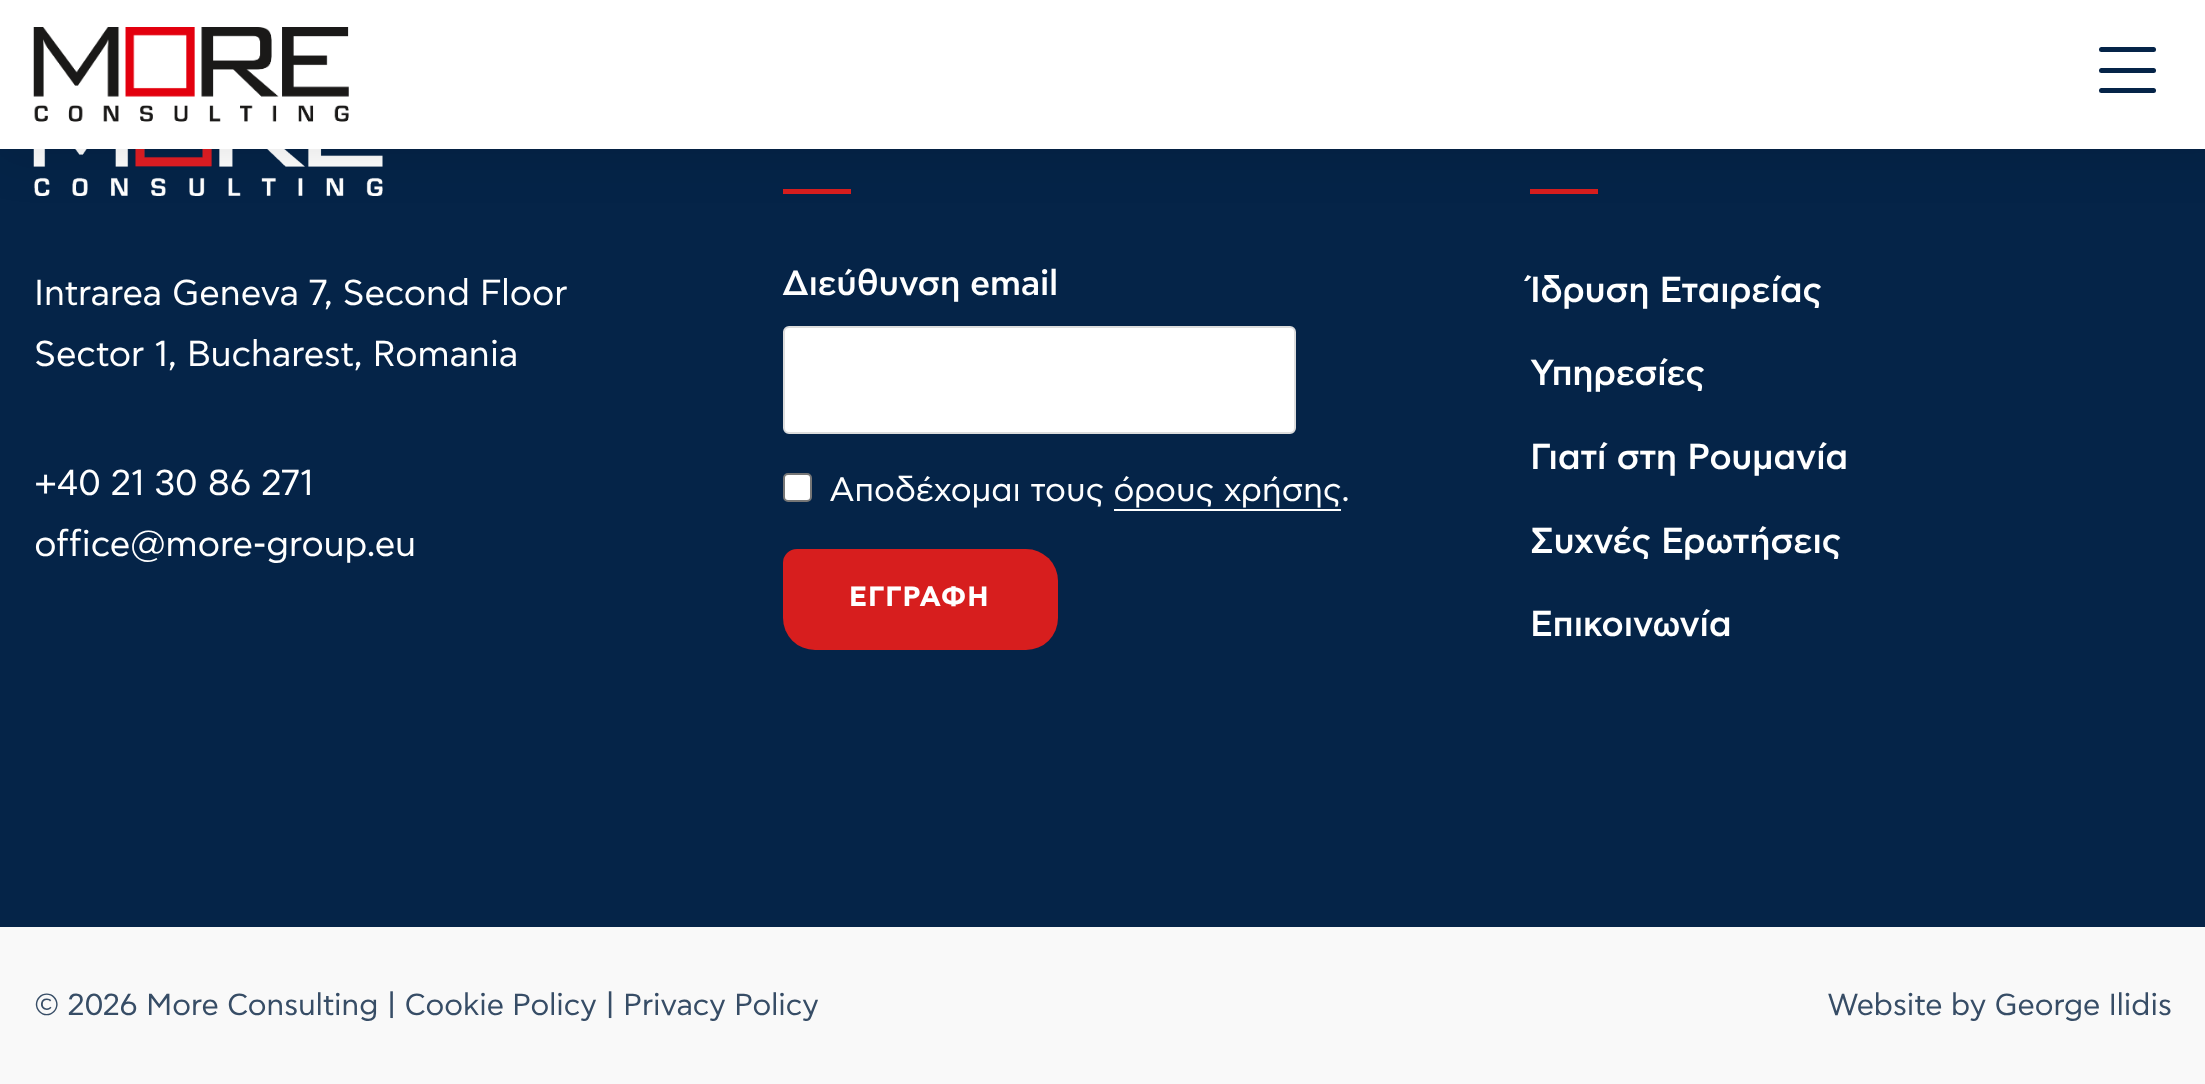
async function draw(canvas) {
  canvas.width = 2205;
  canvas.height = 1084;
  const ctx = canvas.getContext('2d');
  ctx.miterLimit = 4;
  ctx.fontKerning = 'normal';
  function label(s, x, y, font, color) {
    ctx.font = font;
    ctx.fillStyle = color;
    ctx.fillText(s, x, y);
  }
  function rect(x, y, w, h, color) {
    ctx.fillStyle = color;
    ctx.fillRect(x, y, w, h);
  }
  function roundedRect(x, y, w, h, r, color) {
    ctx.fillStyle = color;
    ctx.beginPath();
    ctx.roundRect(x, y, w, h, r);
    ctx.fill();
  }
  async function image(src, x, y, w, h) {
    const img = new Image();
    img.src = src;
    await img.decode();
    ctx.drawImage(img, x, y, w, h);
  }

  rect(0, 0, 2205, 1084, '#f9f9f9');
  rect(0, 149, 2205, 778, '#052448');
  await image('assets/img2.png', 33, 149, 350, 47);
  rect(783, 189, 68, 5, '#d71e1e');
  rect(1530, 189, 68, 5, '#d71e1e');
  ctx.fillStyle = '#0000001c';
  ctx.filter = 'blur(25px)';
  ctx.beginPath();
  ctx.rect(-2, -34, 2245, 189);
  ctx.fill();
  ctx.filter = 'none';
  rect(0, 0, 2205, 149, '#fff');
  roundedRect(2099, 68, 57, 5, 2.5, '#052448');
  roundedRect(2099, 47, 57, 5, 2.5, '#052448');
  roundedRect(2099, 88, 57, 5, 2.5, '#052448');
  await image('assets/img1.png', 33, 27, 316, 95);
  ctx.letterSpacing = '-0.45px';
  label('Intrarea Geneva 7, Second Floor', 34, 305, '36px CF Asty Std', '#fff');
  label('Sector 1, Bucharest, Romania', 34, 366, '36px CF Asty Std', '#fff');
  label('+40 21 30 86 271', 34, 495, '36px CF Asty Std', '#fff');
  label('office@more-group.eu', 34, 556, '36px CF Asty Std', '#fff');
  label('Διεύθυνση email', 782, 295, '500 35px CF Asty Std', '#fff');
  ctx.beginPath();
  ctx.roundRect(784, 327, 511, 106, 5);
  ctx.fill();
  ctx.strokeStyle = '#ddd';
  ctx.lineWidth = 2;
  ctx.stroke();
  ctx.beginPath();
  ctx.roundRect(784, 474, 27, 27, 4);
  ctx.fill();
  ctx.strokeStyle = '#767676';
  ctx.stroke();
  label('Αποδέχομαι τους όρους χρήσης.', 829, 501, '33.75px CF Asty Std', '#fff');
  rect(1114, 509, 227, 2, '#fff');
  ctx.fillStyle = '#d71e1e';
  ctx.beginPath();
  ctx.roundRect(783, 549, 275, 101, [14, 32, 32, 32]);
  ctx.fill();
  ctx.letterSpacing = '1px';
  label('ΕΓΓΡΑΦΗ', 849, 606, 'bold 28px CF Asty Std', '#fff');
  ctx.letterSpacing = '-0.45px';
  label('Ίδρυση Εταιρείας', 1530, 302, '500 36px CF Asty Std', '#fff');
  label('Υπηρεσίες', 1530, 385, '500 36px CF Asty Std', '#fff');
  label('Γιατί στη Ρουμανία', 1530, 469, '500 36px CF Asty Std', '#fff');
  label('Συχνές Ερωτήσεις', 1530, 553, '500 36px CF Asty Std', '#fff');
  label('Επικοινωνία', 1530, 636, '500 36px CF Asty Std', '#fff');
  label('© 2026 More Consulting | Cookie Policy | Privacy Policy', 34, 1015, '30.4px CF Asty Std', '#374d66');
  label('Website by George Ilidis', 1827, 1015, '30.4px CF Asty Std', '#374d66');
}

draw(document.querySelector('canvas'));
